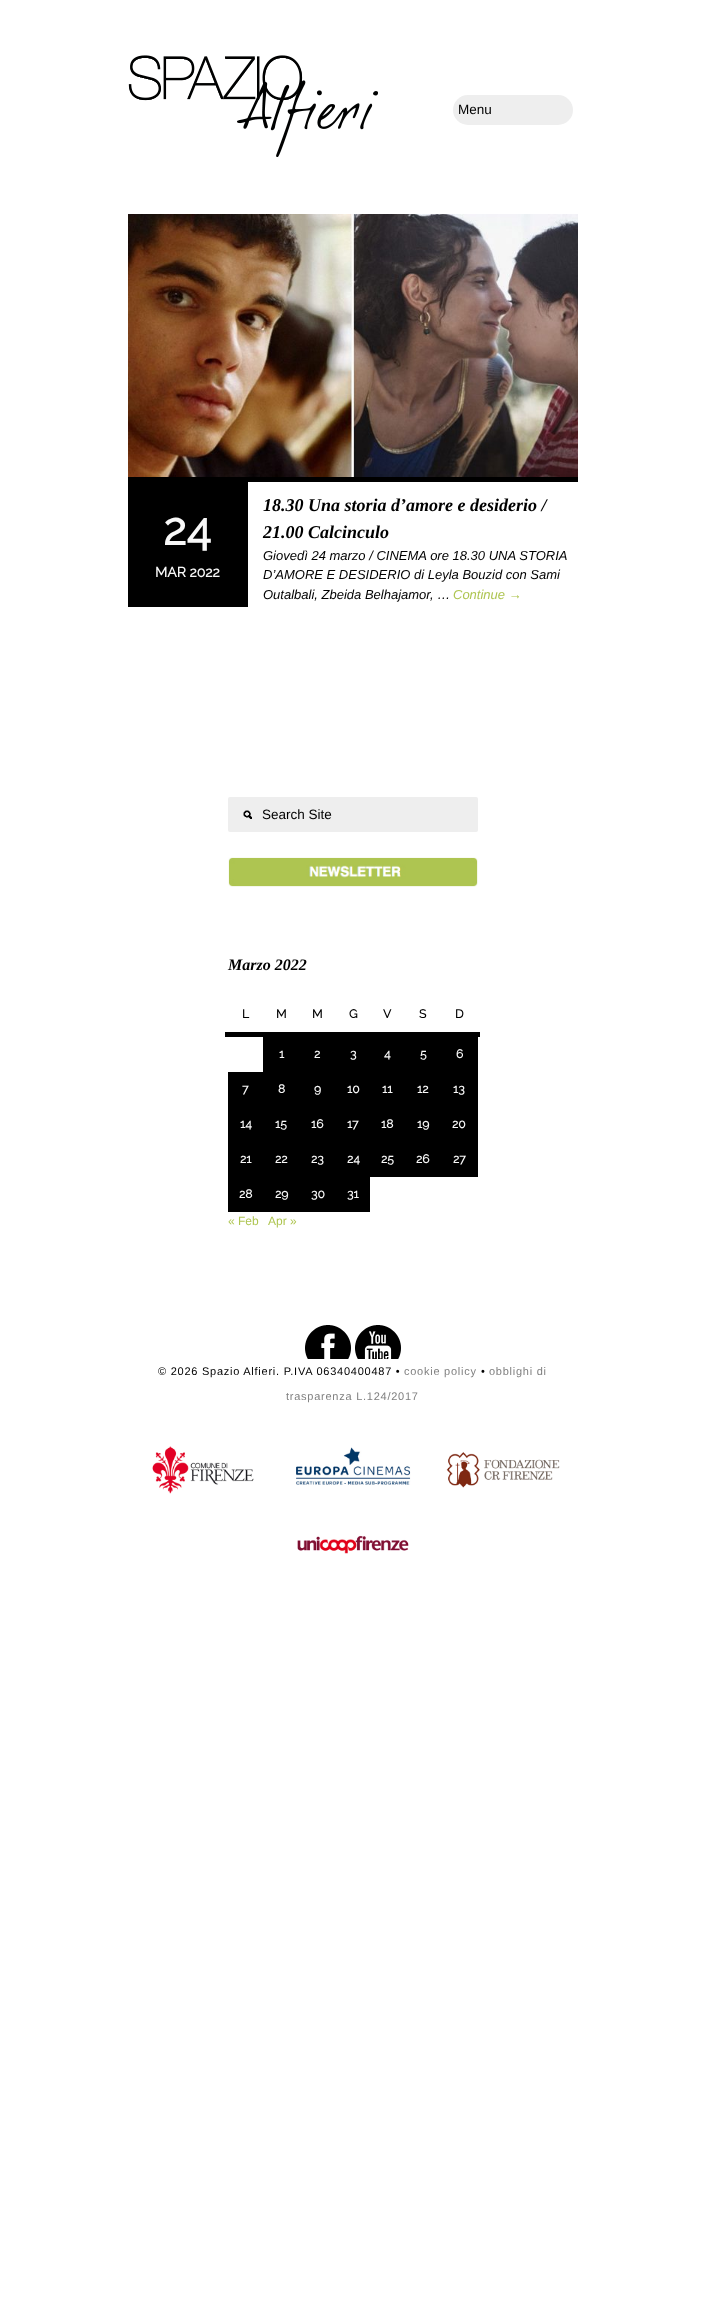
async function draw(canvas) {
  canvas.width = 705;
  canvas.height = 2320;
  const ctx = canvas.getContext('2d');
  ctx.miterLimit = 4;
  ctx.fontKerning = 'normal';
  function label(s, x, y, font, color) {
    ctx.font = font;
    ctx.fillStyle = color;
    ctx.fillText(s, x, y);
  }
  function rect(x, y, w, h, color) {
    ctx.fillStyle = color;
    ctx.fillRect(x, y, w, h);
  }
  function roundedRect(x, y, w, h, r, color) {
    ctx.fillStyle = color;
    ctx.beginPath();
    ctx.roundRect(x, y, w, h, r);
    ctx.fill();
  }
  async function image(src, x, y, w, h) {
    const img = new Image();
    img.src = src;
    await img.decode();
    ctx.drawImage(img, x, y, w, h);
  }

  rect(0, 0, 705, 2320, '#fff');
  await image('assets/img1.png', 128, 55, 250, 102);
  roundedRect(453, 95, 120, 30, 15, '#eee');
  label('Menu', 458, 114, '13.5px Liberation Sans', '#000');
  rect(128, 477, 450, 5, '#000');
  await image('assets/img2.png', 128, 214, 450, 263);
  rect(128, 482, 120, 125, '#000');
  label('24', 163, 545, 'bold 45px Raleway', '#f8f8f8');
  label('MAR 2022', 155, 577, 'bold 14px Raleway', '#f8f8f8');
  label('18.30 Una storia d’amore e desiderio /', 263, 511, 'italic bold 18px Liberation Serif', '#000');
  label('21.00 Calcinculo', 263, 538, 'italic bold 18px Liberation Serif', '#000');
  label('Giovedì 24 marzo / CINEMA ore 18.30 UNA STORIA', 263, 560, 'italic 13px Liberation Sans', '#000');
  label('D’AMORE E DESIDERIO di Leyla Bouzid con Sami', 263, 579, 'italic 13px Liberation Sans', '#000');
  label('Outalbali, Zbeida Belhajamor, …', 263, 599, 'italic 13px Liberation Sans', '#000');
  label('Continue →', 453, 599, 'italic 13px Liberation Sans', '#aec551');
  roundedRect(228, 797, 250, 35, 2, '#eee');
  await image('assets/img3.png', 243, 810, 9, 9);
  label('Search Site', 262, 819, '13.5px Liberation Sans', '#000');
  await image('assets/img4.png', 228, 857, 250, 30);
  label('Marzo 2022', 228, 970, 'italic bold 16px Liberation Serif', '#000');
  label('L', 242, 1018, 'bold 12px Raleway', '#000');
  label('M', 276, 1018, 'bold 12px Raleway', '#000');
  label('M', 312, 1018, 'bold 12px Raleway', '#000');
  label('G', 349, 1018, 'bold 12px Raleway', '#000');
  label('V', 383, 1018, 'bold 12px Raleway', '#000');
  label('S', 419, 1018, 'bold 12px Raleway', '#000');
  rect(225, 1032, 255, 5, '#000');
  label('D', 455, 1018, 'bold 12px Raleway', '#000');
  rect(263, 1037, 215, 35, '#000');
  label('1', 279, 1058, 'bold 12px Raleway', '#f8f8f8');
  label('2', 314, 1058, 'bold 12px Raleway', '#f8f8f8');
  label('3', 350, 1058, 'bold 12px Raleway', '#f8f8f8');
  label('4', 384, 1058, 'bold 12px Raleway', '#f8f8f8');
  label('5', 420, 1058, 'bold 12px Raleway', '#f8f8f8');
  label('6', 456, 1058, 'bold 12px Raleway', '#f8f8f8');
  rect(228, 1072, 250, 35, '#000');
  label('7', 242, 1093, 'bold 12px Raleway', '#f8f8f8');
  label('8', 278, 1093, 'bold 12px Raleway', '#f8f8f8');
  label('9', 314, 1093, 'bold 12px Raleway', '#f8f8f8');
  label('10', 347, 1093, 'bold 12px Raleway', '#f8f8f8');
  label('11', 382, 1093, 'bold 12px Raleway', '#f8f8f8');
  label('12', 417, 1093, 'bold 12px Raleway', '#f8f8f8');
  label('13', 453, 1093, 'bold 12px Raleway', '#f8f8f8');
  rect(228, 1107, 250, 35, '#000');
  label('14', 240, 1128, 'bold 12px Raleway', '#f8f8f8');
  label('15', 275, 1128, 'bold 12px Raleway', '#f8f8f8');
  label('16', 311, 1128, 'bold 12px Raleway', '#f8f8f8');
  label('17', 347, 1128, 'bold 12px Raleway', '#f8f8f8');
  label('18', 381, 1128, 'bold 12px Raleway', '#f8f8f8');
  label('19', 417, 1128, 'bold 12px Raleway', '#f8f8f8');
  label('20', 452, 1128, 'bold 12px Raleway', '#f8f8f8');
  rect(228, 1142, 250, 35, '#000');
  label('21', 240, 1163, 'bold 12px Raleway', '#f8f8f8');
  label('22', 275, 1163, 'bold 12px Raleway', '#f8f8f8');
  label('23', 311, 1163, 'bold 12px Raleway', '#f8f8f8');
  label('24', 347, 1163, 'bold 12px Raleway', '#f8f8f8');
  label('25', 381, 1163, 'bold 12px Raleway', '#f8f8f8');
  label('26', 416, 1163, 'bold 12px Raleway', '#f8f8f8');
  label('27', 453, 1163, 'bold 12px Raleway', '#f8f8f8');
  rect(228, 1177, 142, 35, '#000');
  label('28', 239, 1198, 'bold 12px Raleway', '#f8f8f8');
  label('29', 275, 1198, 'bold 12px Raleway', '#f8f8f8');
  label('30', 311, 1198, 'bold 12px Raleway', '#f8f8f8');
  label('31', 347, 1198, 'bold 12px Raleway', '#f8f8f8');
  label('« Feb', 228, 1225, '12px Liberation Sans', '#aec551');
  label('Apr »', 268, 1225, '12px Liberation Sans', '#aec551');
  await image('assets/img5.png', 305, 1325, 46, 34);
  await image('assets/img6.png', 355, 1325, 46, 34);
  ctx.letterSpacing = '0.75px';
  label('© 2026 Spazio Alfieri. P.IVA 06340400487 •', 158, 1375, '11px Liberation Sans', '#000');
  label('cookie policy', 404, 1375, '11px Liberation Sans', '#808080');
  label('•', 481, 1375, '11px Liberation Sans', '#000');
  label('obblighi di', 489, 1375, '11px Liberation Sans', '#808080');
  label('trasparenza L.124/2017', 286, 1400, '11px Liberation Sans', '#808080');
  await image('assets/img7.png', 152, 1446, 102, 48);
  await image('assets/img8.png', 296, 1447, 115, 38);
  await image('assets/img9.png', 446, 1452, 114, 36);
  await image('assets/img10.png', 297, 1535, 112, 19);
}

draw(document.querySelector('canvas'));
